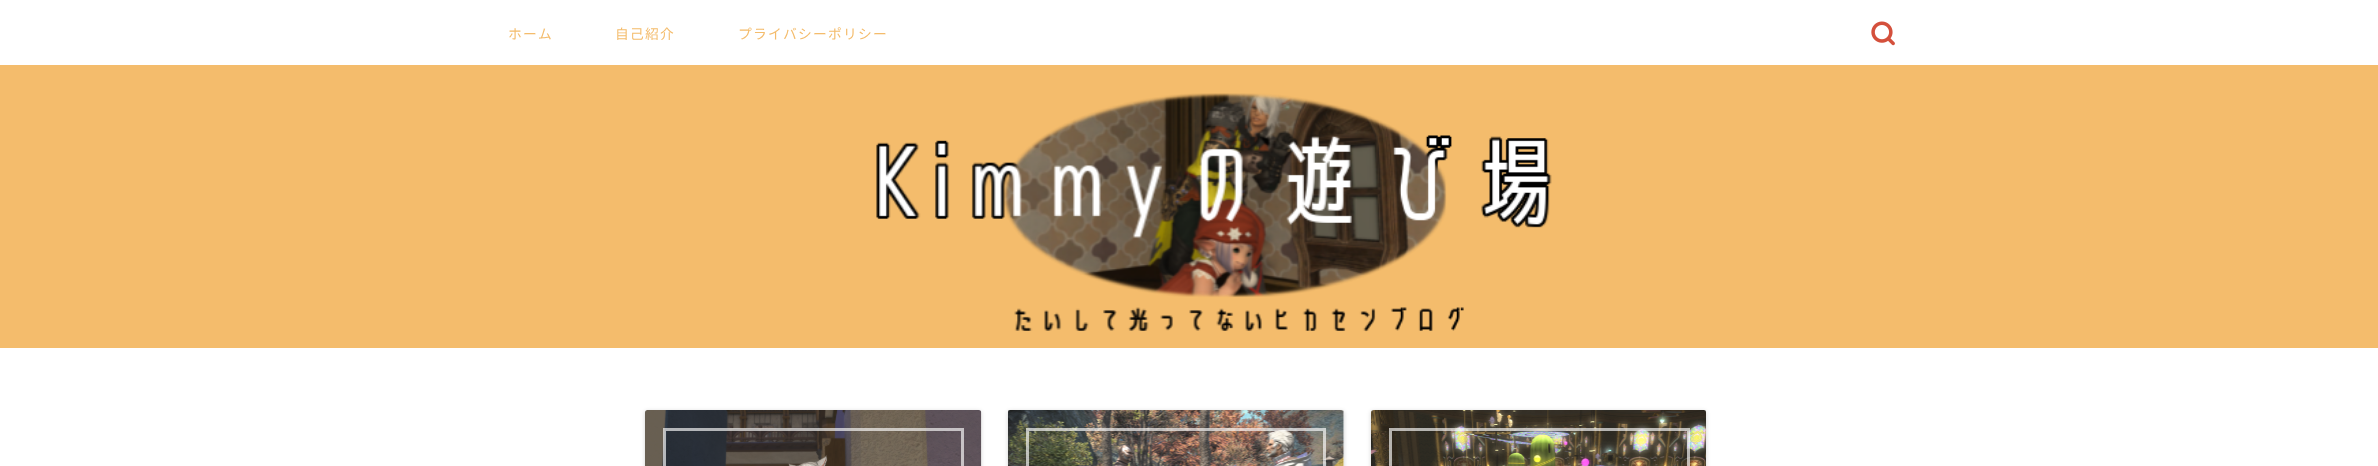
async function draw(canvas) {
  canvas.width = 2378;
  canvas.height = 466;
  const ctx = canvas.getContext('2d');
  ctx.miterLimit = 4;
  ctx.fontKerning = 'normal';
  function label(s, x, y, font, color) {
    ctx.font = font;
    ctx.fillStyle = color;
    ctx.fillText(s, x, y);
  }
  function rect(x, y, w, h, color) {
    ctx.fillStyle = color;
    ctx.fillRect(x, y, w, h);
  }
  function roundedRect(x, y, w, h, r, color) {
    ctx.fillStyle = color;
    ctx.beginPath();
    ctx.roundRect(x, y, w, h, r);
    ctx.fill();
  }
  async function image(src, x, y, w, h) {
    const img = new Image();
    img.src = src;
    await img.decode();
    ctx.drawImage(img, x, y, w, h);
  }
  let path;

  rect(0, 0, 2378, 466, '#fff');
  ctx.letterSpacing = '1.25px';
  label('ホーム', 508, 39, '13.75px Noto Sans JP', '#f4bc6c');
  label('自己紹介', 615, 39, '13.75px Noto Sans JP', '#f4bc6c');
  label('プライバシーポリシー', 738, 39, '13.75px Noto Sans JP', '#f4bc6c');
  await image('assets/img1.png', 1871, 21, 24, 25);
  rect(0, 65, 2378, 283, '#f4bc6c');
  await image('assets/img2.png', 876, 93, 676, 239);
  ctx.save();
  path = new Path2D('M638 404H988V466H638ZM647.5 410H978.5C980 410 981 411 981 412.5V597.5C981 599 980 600 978.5 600H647.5C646 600 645 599 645 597.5V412.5C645 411 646 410 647.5 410Z');
  ctx.clip(path, 'evenodd');
  ctx.fillStyle = '#0000002e';
  ctx.filter = 'blur(2px)';
  ctx.beginPath();
  ctx.roundRect(645, 411, 336, 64, 2.5);
  ctx.fill();
  ctx.filter = 'none';
  ctx.restore();
  await image('assets/img3.png', 645, 410, 337, 56);
  ctx.strokeStyle = '#ffffffa6';
  ctx.lineWidth = 3;
  ctx.strokeRect(664.5, 429.5, 298, 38);
  ctx.fillStyle = '#0000002e';
  ctx.filter = 'blur(2px)';
  ctx.beginPath();
  ctx.roundRect(1008, 411, 336, 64, 2.5);
  ctx.fill();
  ctx.filter = 'none';
  roundedRect(1008, 410, 336, 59, 2.5, '#fff');
  await image('assets/img4.png', 1008, 410, 336, 56);
  ctx.strokeRect(1027.5, 429.5, 297, 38);
  ctx.fillStyle = '#0000002e';
  ctx.filter = 'blur(2px)';
  ctx.beginPath();
  ctx.roundRect(1371, 411, 335, 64, 2.5);
  ctx.fill();
  ctx.filter = 'none';
  roundedRect(1371, 410, 335, 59, 2.5, '#fff');
  await image('assets/img5.png', 1371, 410, 335, 56);
  ctx.strokeRect(1390.5, 429.5, 298, 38);
}

draw(document.querySelector('canvas'));
